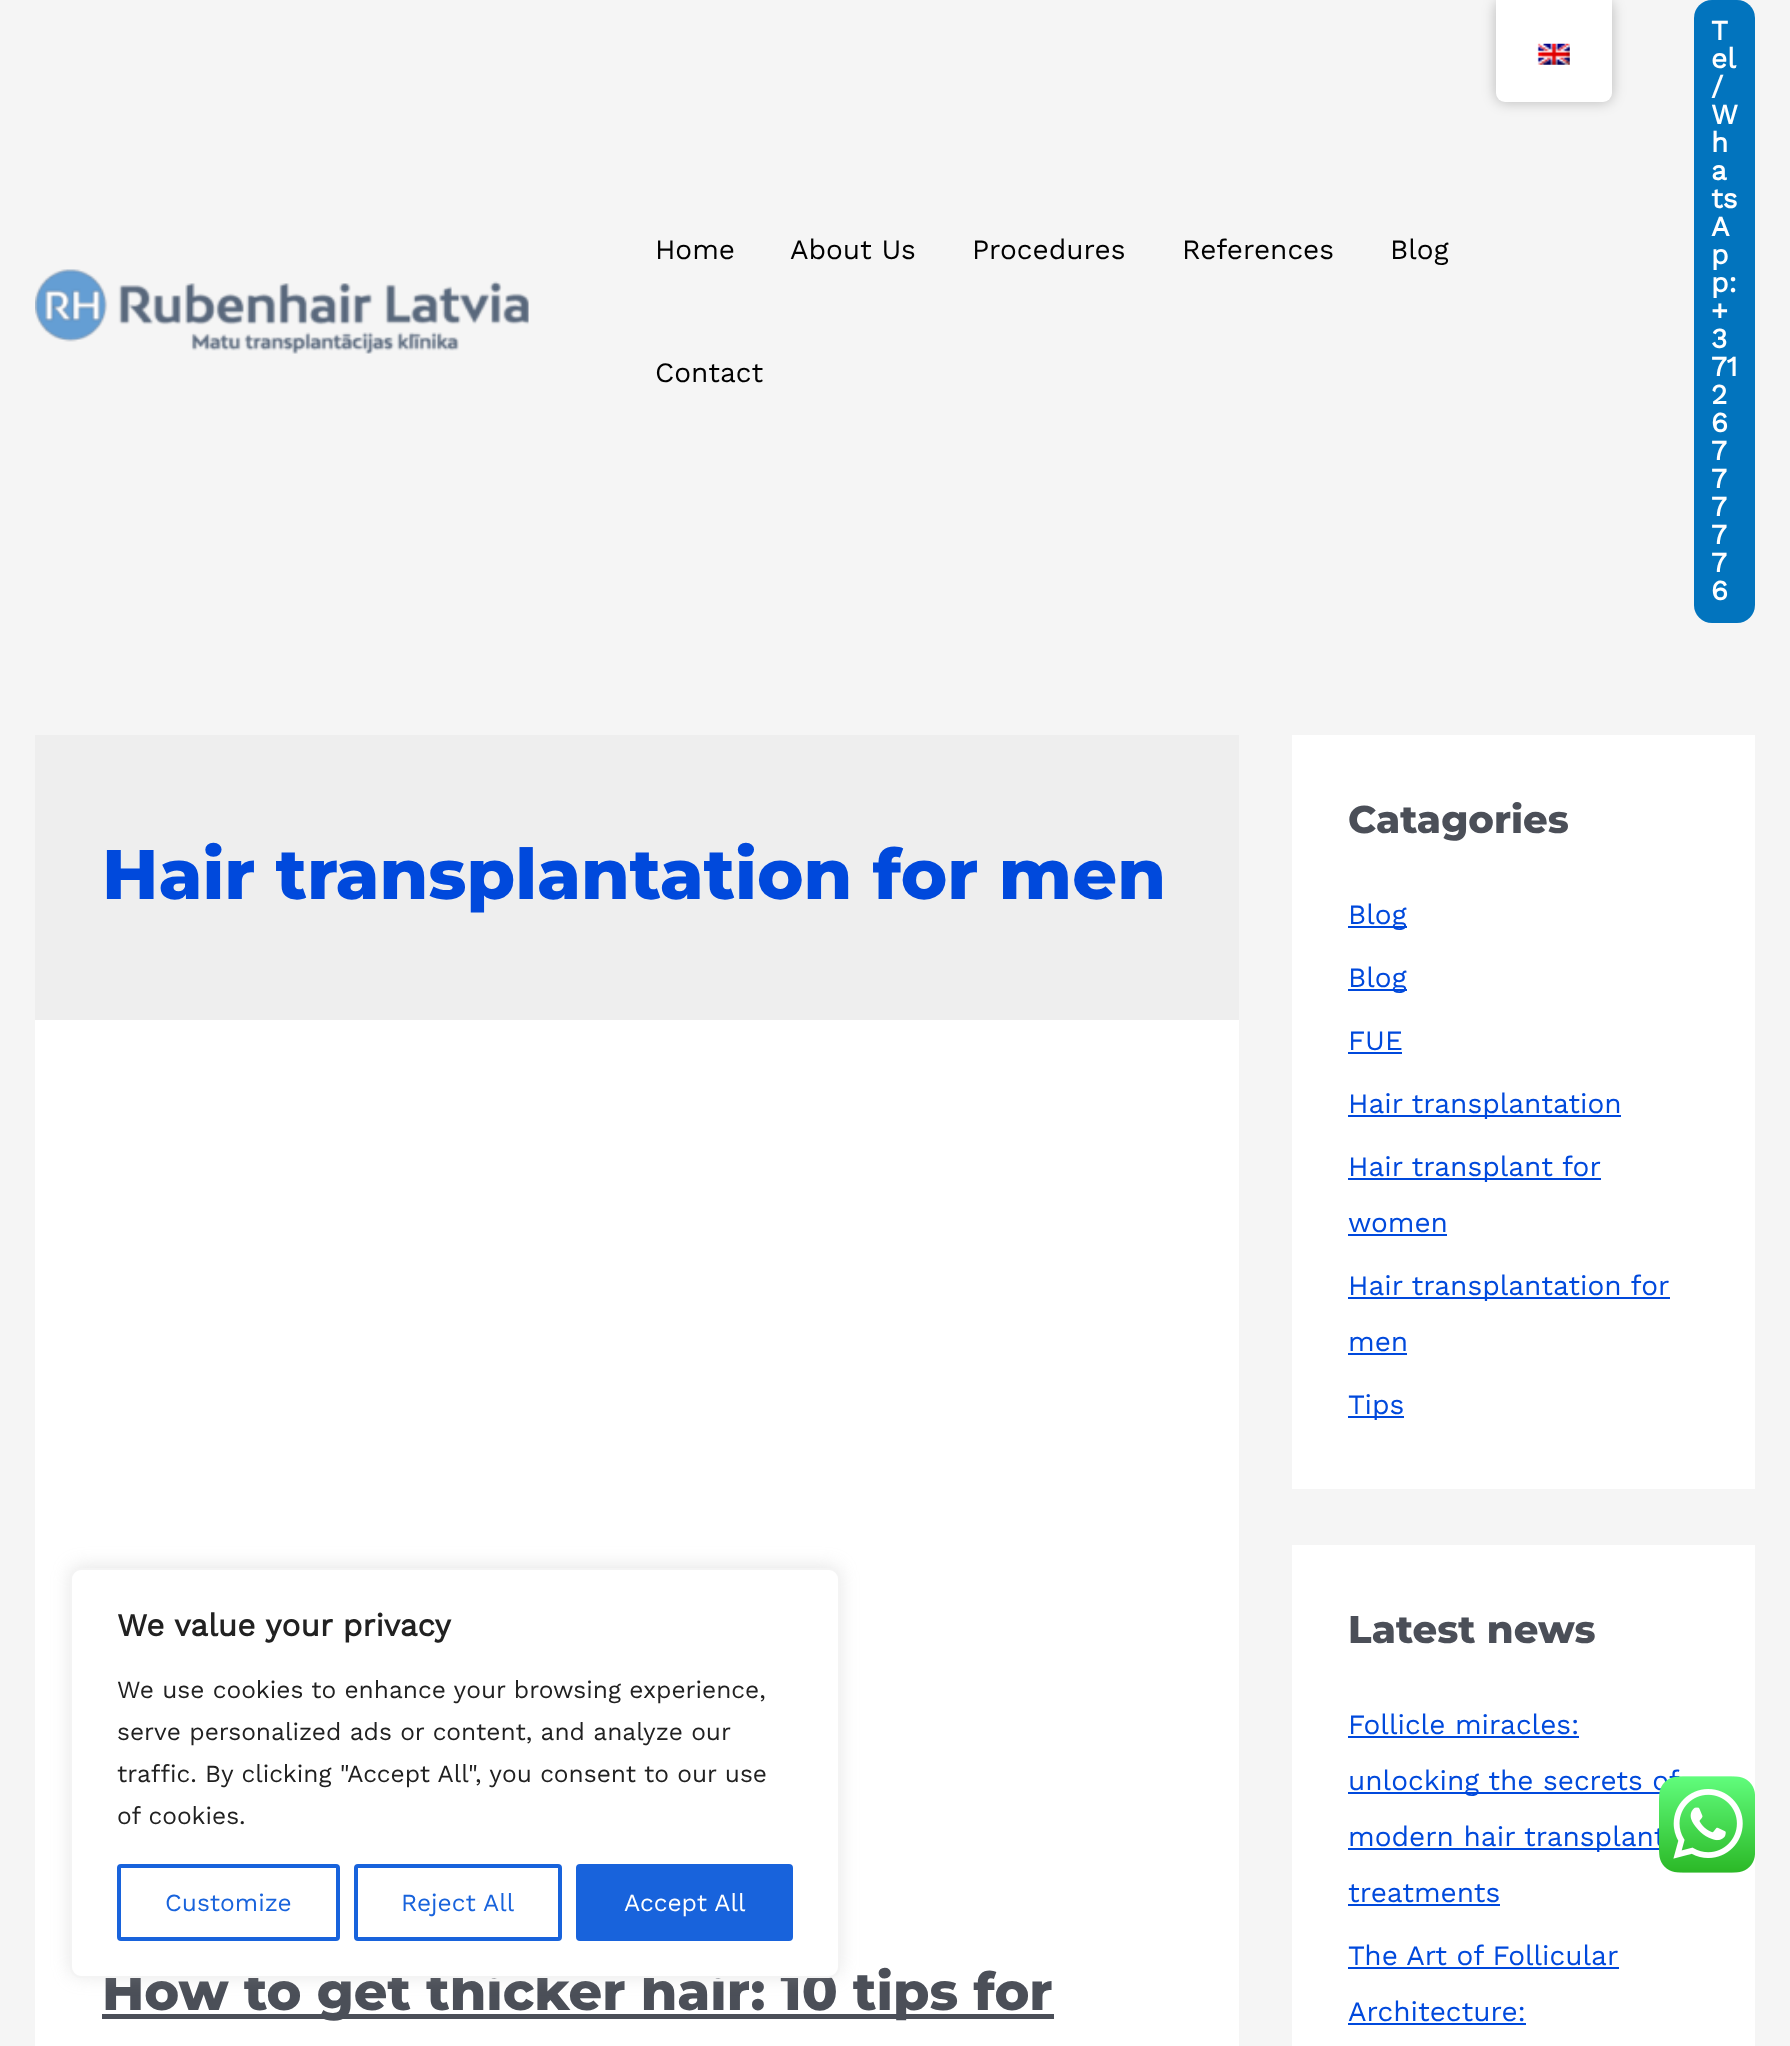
async function draw(canvas) {
  canvas.width = 1790;
  canvas.height = 2046;
  const ctx = canvas.getContext('2d');
  ctx.miterLimit = 4;
  ctx.fontKerning = 'normal';
  function label(s, x, y, font, color) {
    ctx.font = font;
    ctx.fillStyle = color;
    ctx.fillText(s, x, y);
  }
  function rect(x, y, w, h, color) {
    ctx.fillStyle = color;
    ctx.fillRect(x, y, w, h);
  }
  function roundedRect(x, y, w, h, r, color) {
    ctx.fillStyle = color;
    ctx.beginPath();
    ctx.roundRect(x, y, w, h, r);
    ctx.fill();
  }
  async function image(src, x, y, w, h) {
    const img = new Image();
    img.src = src;
    await img.decode();
    ctx.drawImage(img, x, y, w, h);
  }

  rect(0, 0, 1790, 2046, '#f5f5f5');
  ctx.fillStyle = '#00000040';
  ctx.filter = 'blur(7px)';
  ctx.beginPath();
  ctx.roundRect(1496, 0, 116, 102, 9);
  ctx.fill();
  ctx.filter = 'none';
  ctx.fillStyle = '#fff';
  ctx.beginPath();
  ctx.roundRect(1496, 0, 116, 102, [0, 0, 9, 9]);
  ctx.fill();
  await image('assets/img1.png', 1537, 43, 33, 22);
  await image('assets/img2.png', 35, 269, 494, 85);
  label('Home', 655, 259, '28px Work Sans', '#000');
  label('About Us', 790, 259, '28px Work Sans', '#000');
  label('Procedures', 972, 259, '28px Work Sans', '#000');
  label('References', 1182, 259, '28px Work Sans', '#000');
  label('Blog', 1390, 259, '28px Work Sans', '#000');
  label('Contact', 655, 382, '28px Work Sans', '#000');
  roundedRect(1694, 0, 61, 623, 18, '#0274be');
  label('T', 1711, 40, 'bold 28px Work Sans', '#fff');
  label('el', 1711, 68, 'bold 28px Work Sans', '#fff');
  label('/', 1711, 96, 'bold 28px Work Sans', '#fff');
  label('W', 1711, 124, 'bold 28px Work Sans', '#fff');
  label('h', 1711, 152, 'bold 28px Work Sans', '#fff');
  label('a', 1711, 180, 'bold 28px Work Sans', '#fff');
  label('ts', 1711, 208, 'bold 28px Work Sans', '#fff');
  label('A', 1711, 236, 'bold 28px Work Sans', '#fff');
  label('p', 1711, 264, 'bold 28px Work Sans', '#fff');
  label('p:', 1711, 292, 'bold 28px Work Sans', '#fff');
  label('+', 1711, 320, 'bold 28px Work Sans', '#fff');
  label('3', 1711, 348, 'bold 28px Work Sans', '#fff');
  label('71', 1711, 376, 'bold 28px Work Sans', '#fff');
  label('2', 1711, 404, 'bold 28px Work Sans', '#fff');
  label('6', 1711, 432, 'bold 28px Work Sans', '#fff');
  label('7', 1711, 460, 'bold 28px Work Sans', '#fff');
  label('7', 1711, 488, 'bold 28px Work Sans', '#fff');
  label('7', 1711, 516, 'bold 28px Work Sans', '#fff');
  label('7', 1711, 544, 'bold 28px Work Sans', '#fff');
  label('7', 1711, 572, 'bold 28px Work Sans', '#fff');
  label('6', 1711, 600, 'bold 28px Work Sans', '#fff');
  rect(35, 735, 1204, 285, '#eee');
  label('Hair transplantation for men', 102, 899, '100 70px Montserrat', '#0049dc');
  rect(35, 1020, 1204, 1026, '#fff');
  rect(102, 2014, 952, 5, '#4b4f58');
  label('How to get thicker hair: 10 tips for', 102, 2010, '100 52.5px Montserrat', '#4b4f58');
  rect(1292, 735, 463, 754, '#fff');
  label('Catagories', 1348, 833, '100 38.5px Montserrat', '#4b4f58');
  rect(1348, 926, 59, 2, '#0049dc');
  label('Blog', 1348, 924, '28px Work Sans', '#0049dc');
  rect(1348, 989, 59, 2, '#0049dc');
  label('Blog', 1348, 987, '28px Work Sans', '#0049dc');
  label('FUE', 1348, 1050, '28px Work Sans', '#0049dc');
  rect(1348, 1052, 54, 2, '#0049dc');
  rect(1348, 1115, 273, 2, '#0049dc');
  label('Hair transplantation', 1348, 1113, '28px Work Sans', '#0049dc');
  rect(1348, 1178, 253, 2, '#0049dc');
  label('Hair transplant for', 1348, 1176, '28px Work Sans', '#0049dc');
  label('women', 1348, 1232, '28px Work Sans', '#0049dc');
  rect(1348, 1234, 99, 2, '#0049dc');
  rect(1348, 1297, 322, 2, '#0049dc');
  label('Hair transplantation for', 1348, 1295, '28px Work Sans', '#0049dc');
  label('men', 1348, 1351, '28px Work Sans', '#0049dc');
  rect(1348, 1353, 59, 2, '#0049dc');
  rect(1348, 1416, 56, 2, '#0049dc');
  label('Tips', 1348, 1414, '28px Work Sans', '#0049dc');
  rect(1292, 1545, 463, 501, '#fff');
  label('Latest news', 1348, 1643, '100 38.5px Montserrat', '#4b4f58');
  label('Follicle miracles:', 1348, 1734, '28px Work Sans', '#0049dc');
  rect(1348, 1736, 231, 2, '#0049dc');
  rect(1348, 1792, 312, 2, '#0049dc');
  label('unlocking the secrets of', 1348, 1790, '28px Work Sans', '#0049dc');
  rect(1348, 1848, 318, 2, '#0049dc');
  label('modern hair transplant', 1348, 1846, '28px Work Sans', '#0049dc');
  label('treatments', 1348, 1902, '28px Work Sans', '#0049dc');
  rect(1348, 1904, 152, 2, '#0049dc');
  label('The Art of Follicular', 1348, 1965, '28px Work Sans', '#0049dc');
  rect(1348, 1967, 271, 2, '#0049dc');
  label('Architecture:', 1348, 2021, '28px Work Sans', '#0049dc');
  rect(1348, 2023, 178, 2, '#0049dc');
  ctx.fillStyle = '#acabab4d';
  ctx.filter = 'blur(9px)';
  ctx.beginPath();
  ctx.roundRect(70, 1566, 770, 410, 11);
  ctx.fill();
  ctx.filter = 'none';
  ctx.fillStyle = '#fff';
  ctx.beginPath();
  ctx.roundRect(71, 1569, 768, 408, 10);
  ctx.fill();
  ctx.strokeStyle = '#f4f4f4';
  ctx.lineWidth = 2;
  ctx.stroke();
  label('We value your privacy', 117, 1636, 'bold 31.5px Work Sans', '#212121');
  label('We use cookies to enhance your browsing experience,', 117, 1698, '24.5px Work Sans', '#212121');
  label('serve personalized ads or content, and analyze our', 117, 1740, '24.5px Work Sans', '#212121');
  label('traffic. By clicking "Accept All", you consent to our use', 117, 1782, '24.5px Work Sans', '#212121');
  label('of cookies.', 117, 1824, '24.5px Work Sans', '#212121');
  ctx.beginPath();
  ctx.roundRect(119, 1866, 219, 73, 2);
  ctx.strokeStyle = '#1863dc';
  ctx.lineWidth = 4;
  ctx.stroke();
  label('Customize', 165, 1911, '24.5px Work Sans', '#1863dc');
  ctx.beginPath();
  ctx.roundRect(356, 1866, 204, 73, 2);
  ctx.stroke();
  label('Reject All', 401, 1911, '24.5px Work Sans', '#1863dc');
  ctx.beginPath();
  ctx.roundRect(578, 1866, 213, 73, 2);
  ctx.fill();
  ctx.stroke();
  label('Accept All', 624, 1911, '24.5px Work Sans', '#fff');
  await image('assets/img3.png', 1659, 1776, 96, 97);
}

draw(document.querySelector('canvas'));
